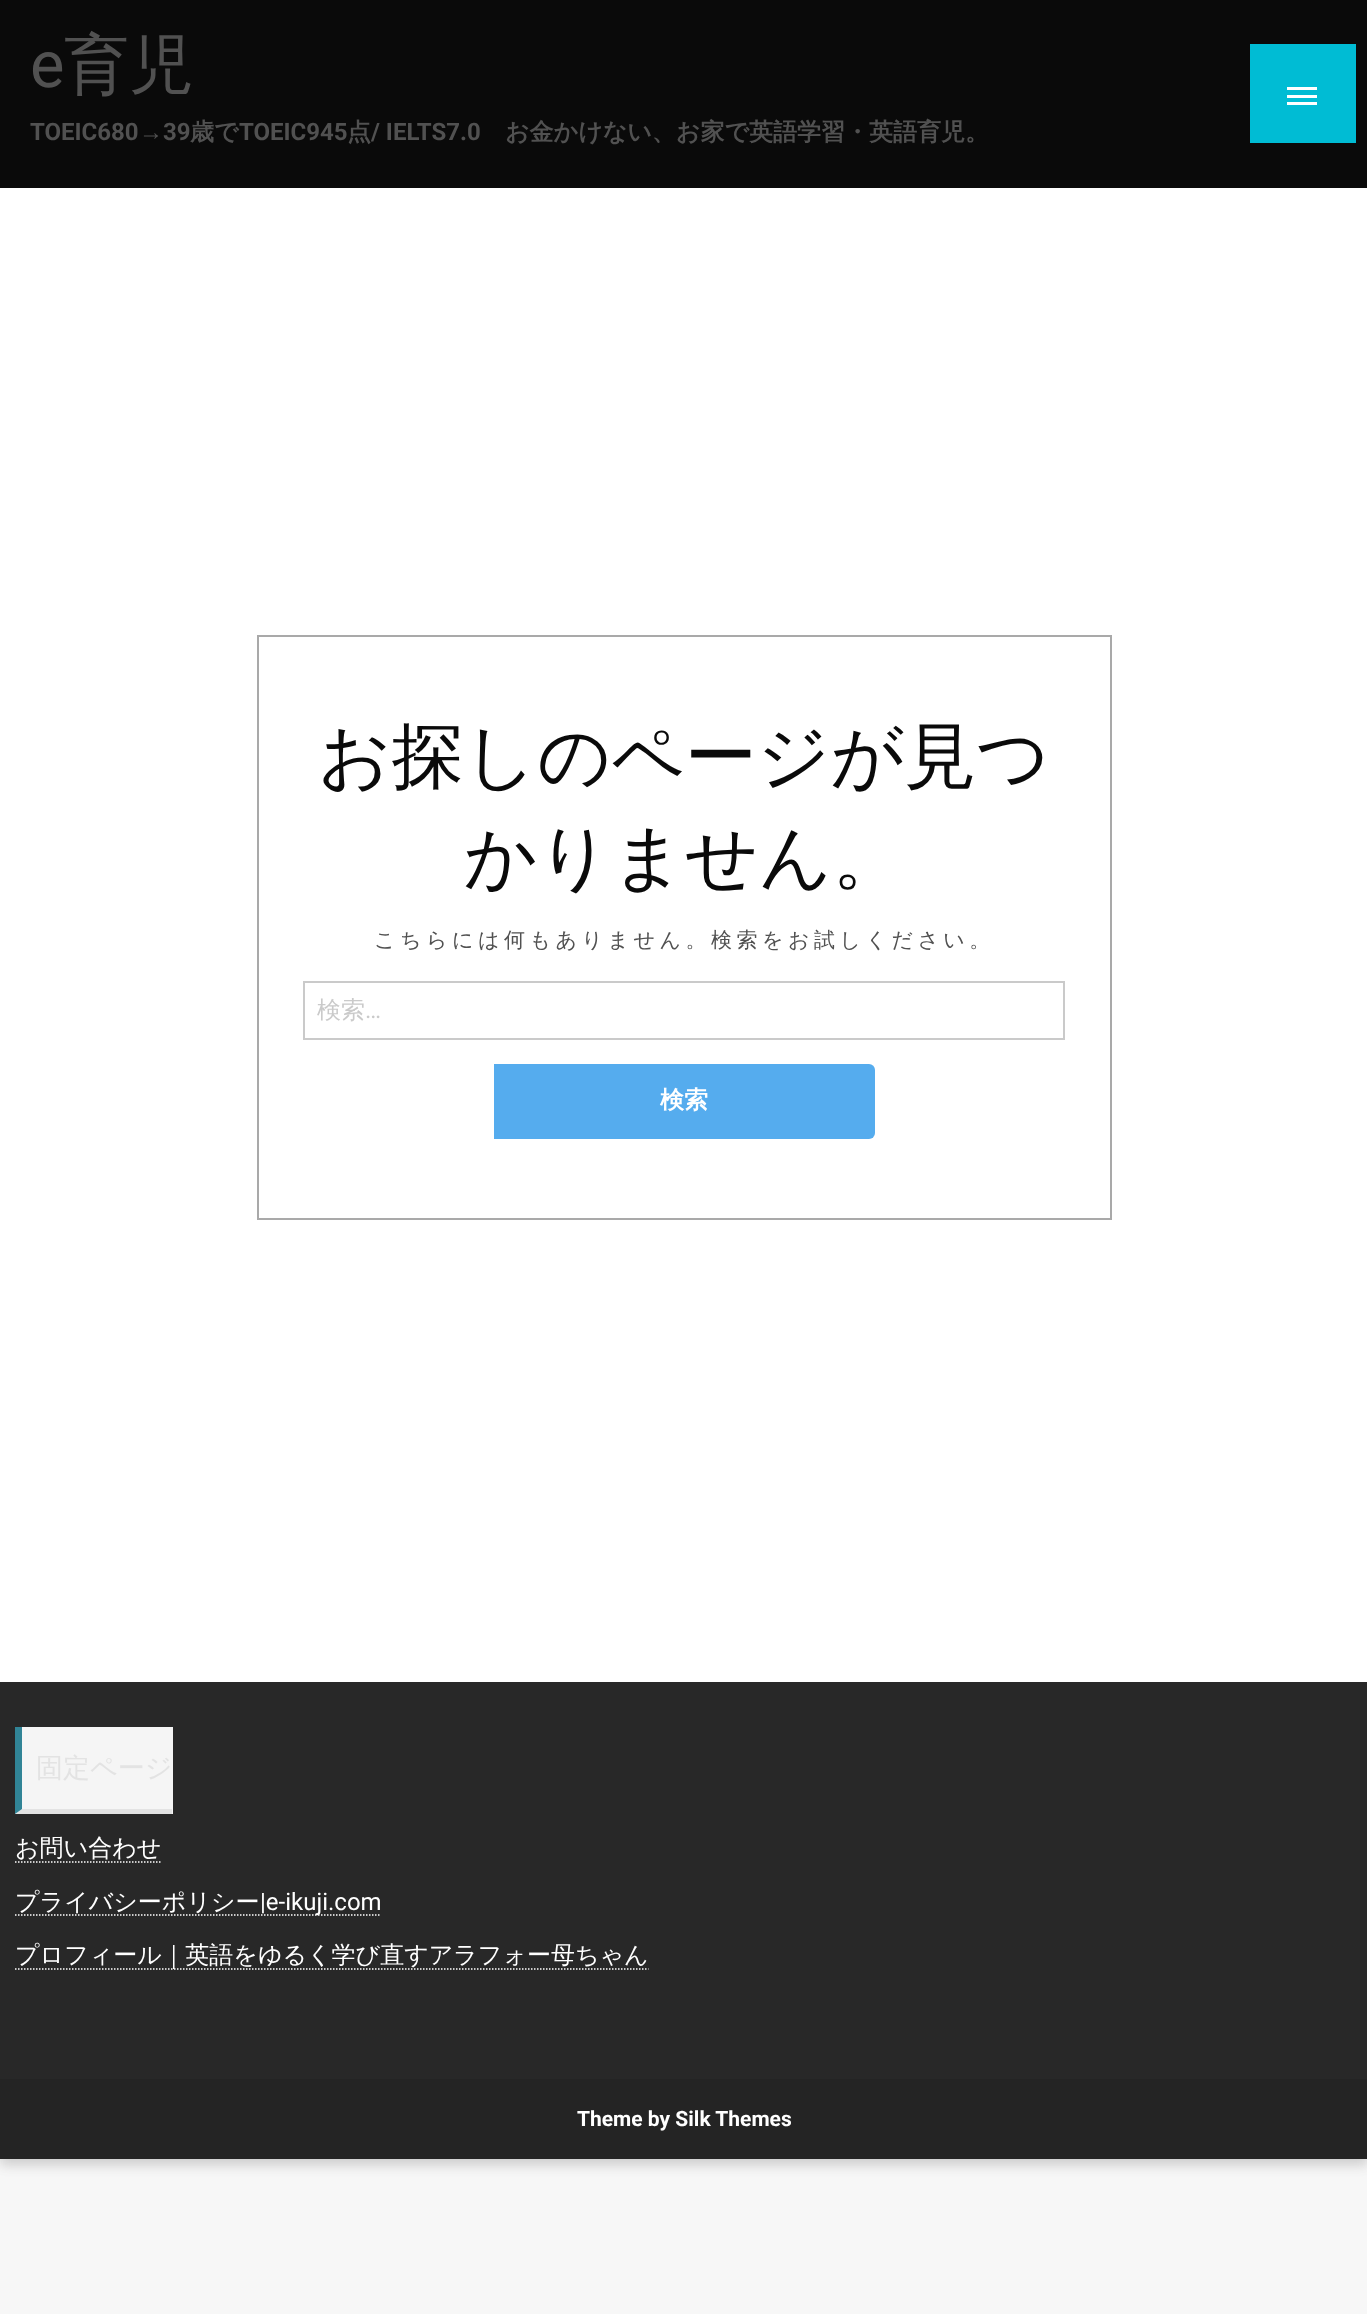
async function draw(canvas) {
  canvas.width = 1367;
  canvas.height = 2314;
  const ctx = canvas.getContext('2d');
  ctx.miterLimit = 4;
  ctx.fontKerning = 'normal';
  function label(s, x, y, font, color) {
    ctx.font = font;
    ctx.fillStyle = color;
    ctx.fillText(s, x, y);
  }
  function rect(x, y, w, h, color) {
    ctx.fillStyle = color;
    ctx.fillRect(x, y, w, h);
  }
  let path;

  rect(0, 0, 1367, 2314, '#f7f7f7');
  ctx.fillStyle = '#00000017';
  ctx.filter = 'blur(7.5px)';
  ctx.beginPath();
  ctx.rect(0, 5, 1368, 2158);
  ctx.fill();
  ctx.filter = 'none';
  ctx.fillStyle = '#0000001a';
  ctx.filter = 'blur(6px)';
  ctx.beginPath();
  ctx.rect(0, 6, 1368, 2159);
  ctx.fill();
  ctx.filter = 'none';
  rect(0, 0, 1367, 188, '#0a0a0a');
  label('e', 30, 87, '65px Roboto', '#515151');
  label('育児', 64, 87, '500 65px WenQuanYi Zen Hei', '#515151');
  label('TOEIC680', 30, 140, 'bold 24px Roboto', '#515151');
  label('→', 139, 140, 'bold 24px Liberation Sans', '#515151');
  label('39', 163, 140, 'bold 24px Roboto', '#515151');
  label('歳で', 190, 140, 'bold 24px WenQuanYi Zen Hei', '#515151');
  label('TOEIC945', 239, 140, 'bold 24px Roboto', '#515151');
  label('点', 347, 140, 'bold 24px WenQuanYi Zen Hei', '#515151');
  label('/ IELTS7.0', 371, 140, 'bold 24px Roboto', '#515151');
  label('お金かけない、お家で英語学習・英語育児。', 505, 140, 'bold 24px WenQuanYi Zen Hei', '#515151');
  rect(1250, 44, 106, 99, '#00bcd4');
  rect(1287, 87, 30, 3, '#fff');
  rect(1287, 95, 30, 3, '#fff');
  rect(1287, 102, 30, 3, '#fff');
  rect(0, 188, 1367, 1494, '#fff');
  ctx.strokeStyle = '#a9a9a9';
  ctx.lineWidth = 2;
  ctx.strokeRect(258, 636, 853, 583);
  label('お探しのページが見つ', 318, 781, '500 72px WenQuanYi Zen Hei', '#0a0a0a');
  label('かりません。', 464, 882, '500 72px WenQuanYi Zen Hei', '#0a0a0a');
  ctx.letterSpacing = '4.5px';
  label('こちらには何もありません。検索をお試しください。', 374, 947, '500 21px WenQuanYi Zen Hei', '#515151');
  ctx.strokeStyle = '#cacaca';
  ctx.strokeRect(304, 982, 760, 57);
  ctx.letterSpacing = '0px';
  label('検索', 317, 1018, '500 24px WenQuanYi Zen Hei', '#cacaca');
  label('…', 365, 1018, '24px Roboto', '#cacaca');
  ctx.fillStyle = '#55acee';
  ctx.beginPath();
  ctx.roundRect(494, 1064, 381, 75, [0, 6, 6, 0]);
  ctx.fill();
  label('検索', 660, 1108, 'bold 24px WenQuanYi Zen Hei', '#fff');
  rect(0, 1682, 1367, 397, '#282828');
  rect(15, 1727, 158, 87, '#f5f5f5');
  ctx.fillStyle = '#e3e3e3';
  path = new Path2D('M172 1814H15L22 1809H172Z');
  ctx.fill(path);
  ctx.save();
  ctx.beginPath();
  ctx.rect(15, 1727, 654, 87);
  ctx.clip();
  ctx.fillStyle = '#318496';
  path = new Path2D('M15 1814V1726H22V1809Z');
  ctx.fill(path);
  ctx.restore();
  label('固定ページ', 36, 1777, '500 27px WenQuanYi Zen Hei', '#e3e3e3');
  label('お問い合わせ', 15, 1856, '500 24px WenQuanYi Zen Hei', '#fff');
  path = new Path2D('M15 1862H161');
  ctx.strokeStyle = '#fff';
  ctx.lineWidth = 1.5;
  ctx.setLineDash([1.5, 1.5]);
  ctx.stroke(path);
  label('プライバシーポリシー', 15, 1910, '500 24px WenQuanYi Zen Hei', '#fff');
  path = new Path2D('M15 1915H381');
  ctx.stroke(path);
  label('|e-ikuji.com', 260, 1910, '24px Roboto', '#fff');
  path = new Path2D('M15 1969H648.5');
  ctx.stroke(path);
  label('プロフィール｜英語をゆるく学び直すアラフォー母ちゃん', 15, 1963, '500 24px WenQuanYi Zen Hei', '#fff');
  rect(0, 2079, 1367, 80, '#242424');
  label('Theme by Silk Themes', 577, 2126, 'bold 21px Roboto', '#fff');
}

draw(document.querySelector('canvas'));
